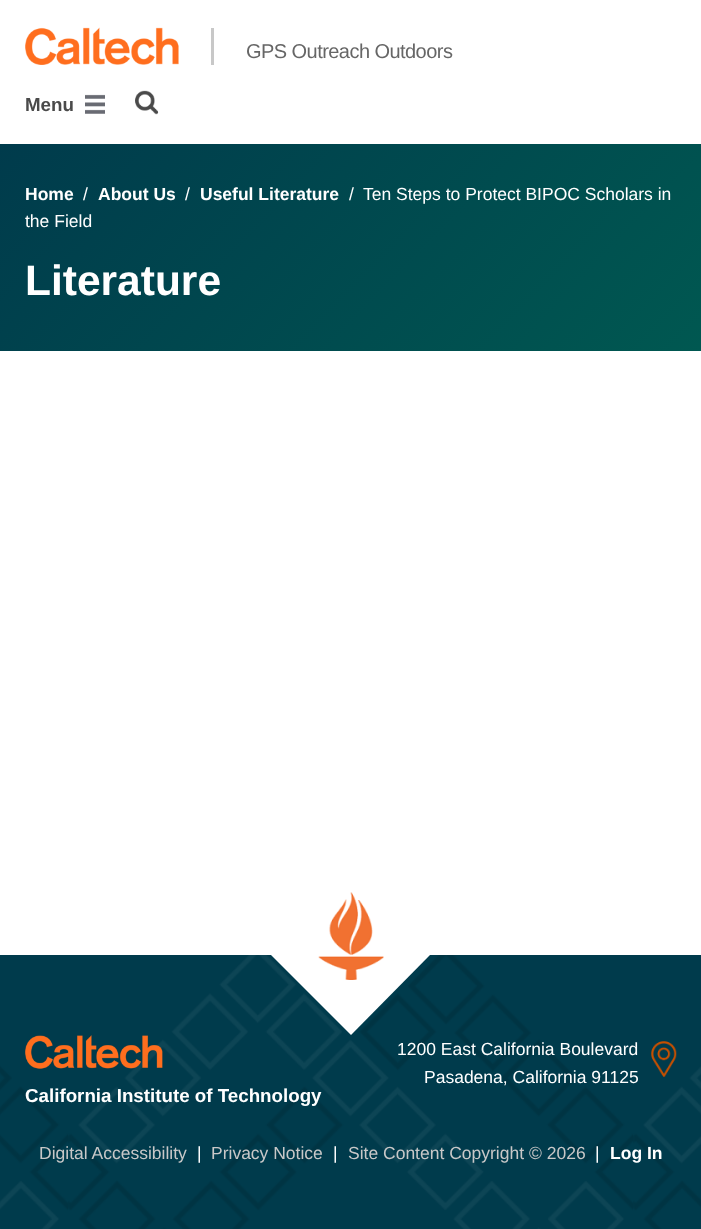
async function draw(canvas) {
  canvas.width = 701;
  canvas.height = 1229;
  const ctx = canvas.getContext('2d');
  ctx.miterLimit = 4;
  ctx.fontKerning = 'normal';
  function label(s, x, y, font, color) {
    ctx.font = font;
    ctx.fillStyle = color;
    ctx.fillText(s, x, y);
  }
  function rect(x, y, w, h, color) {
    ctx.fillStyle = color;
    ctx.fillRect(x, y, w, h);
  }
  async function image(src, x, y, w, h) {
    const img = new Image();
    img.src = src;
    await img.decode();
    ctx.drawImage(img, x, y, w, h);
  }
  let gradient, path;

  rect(0, 0, 701, 1229, '#fff');
  await image('assets/img1.png', 25, 27, 154, 38);
  rect(211, 28, 3, 37, '#c8c8c8');
  ctx.letterSpacing = '-0.55px';
  label('GPS Outreach Outdoors', 246, 58, '20px Liberation Sans', '#666');
  ctx.letterSpacing = '0px';
  label('Menu', 25, 111, 'bold 18.75px Liberation Sans', '#4a4a4a');
  await image('assets/img2.png', 85, 94, 20, 20);
  await image('assets/img3.png', 135, 90, 24, 25);
  gradient = ctx.createLinearGradient(117, 22, 584, 473);
  gradient.addColorStop(0, '#003b4c');
  gradient.addColorStop(1, '#005851');
  ctx.fillStyle = gradient;
  ctx.fillRect(0, 144, 701, 207);
  label('Home', 25, 200, 'bold 17.5px Liberation Sans', '#fff');
  label('/', 83, 200, '17.5px Liberation Sans', '#fff');
  label('About Us', 98, 200, 'bold 17.5px Liberation Sans', '#fff');
  label('/', 185, 200, '17.5px Liberation Sans', '#fff');
  label('Useful Literature', 200, 200, 'bold 17.5px Liberation Sans', '#fff');
  label('/', 349, 200, '17.5px Liberation Sans', '#fff');
  label('Ten Steps to Protect BIPOC Scholars in', 363, 200, '17.5px Liberation Sans', '#fff');
  label('the Field', 25, 227, '17.5px Liberation Sans', '#fff');
  label('Literature', 25, 295, 'bold 42.5px Liberation Sans', '#fff');
  rect(0, 955, 701, 274, '#003b4c');
  await image('assets/img4.png', 0, 955, 701, 274);
  ctx.fillStyle = '#fff';
  path = new Path2D('M351 875L430 955L351 1035L271 955Z');
  ctx.fill(path);
  await image('assets/img5.png', 318, 892, 66, 88);
  label('1200 East California Boulevard', 397, 1055, '17.5px Liberation Sans', '#fff');
  await image('assets/img6.png', 651, 1041, 26, 37);
  label('Pasadena, California 91125', 424, 1083, '17.5px Liberation Sans', '#fff');
  await image('assets/img7.png', 25, 1035, 138, 34);
  label('California Institute of Technology', 25, 1102, 'bold 18.75px Liberation Sans', '#fff');
  label('Digital Accessibility', 39, 1159, '17.5px Liberation Sans', '#c8c8c8');
  label('|', 197, 1159, '17.5px Liberation Sans', '#fff');
  label('Privacy Notice', 211, 1159, '17.5px Liberation Sans', '#c8c8c8');
  label('|', 333, 1159, '17.5px Liberation Sans', '#fff');
  label('Site Content Copyright © 2026', 348, 1159, '17.5px Liberation Sans', '#c8c8c8');
  label('|', 595, 1159, '17.5px Liberation Sans', '#fff');
  label('Log In', 610, 1159, 'bold 17.5px Liberation Sans', '#fff');
}

draw(document.querySelector('canvas'));
